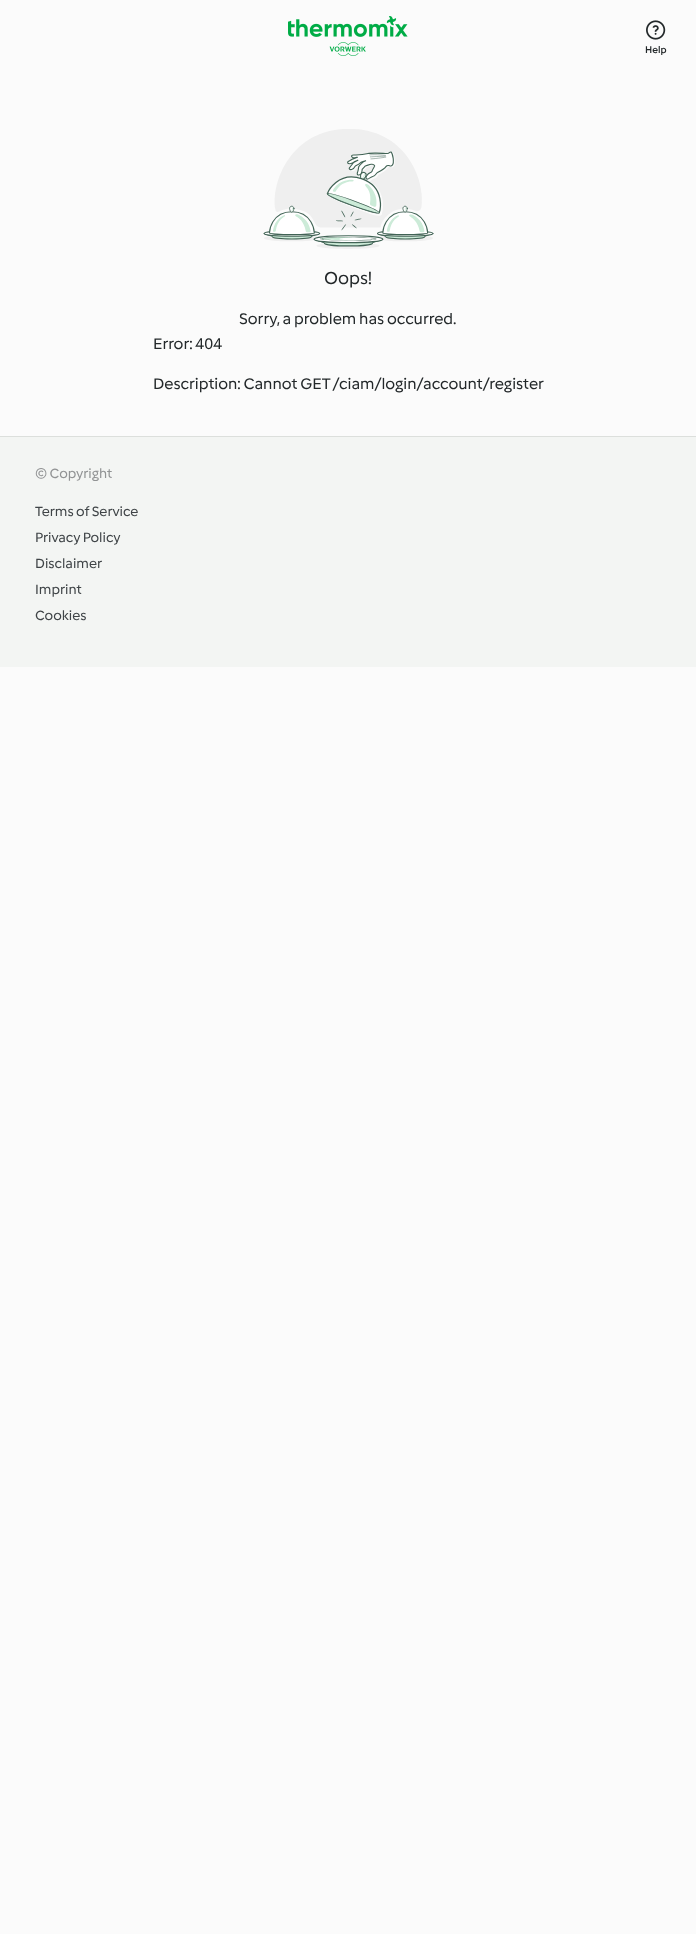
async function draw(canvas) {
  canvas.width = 696;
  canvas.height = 1934;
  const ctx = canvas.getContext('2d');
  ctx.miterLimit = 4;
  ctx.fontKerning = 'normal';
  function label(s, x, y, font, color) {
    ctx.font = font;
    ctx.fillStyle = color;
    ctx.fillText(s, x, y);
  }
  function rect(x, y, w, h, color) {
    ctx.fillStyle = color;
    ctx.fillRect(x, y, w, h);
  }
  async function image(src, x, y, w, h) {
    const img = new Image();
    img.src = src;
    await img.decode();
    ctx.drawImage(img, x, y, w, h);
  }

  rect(0, 0, 696, 1934, '#fbfbfb');
  await image('assets/img1.png', 288, 16, 120, 40);
  await image('assets/img2.png', 646, 20, 20, 20);
  label('Help', 645, 53, '500 10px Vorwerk', '#23282a');
  await image('assets/img3.png', 263, 129, 171, 120);
  label('Oops!', 324, 284, '18px Vorwerk', '#23282a');
  label('Sorry, a problem has occurred.', 239, 324, '16px Vorwerk', '#23282a');
  label('Error: 404', 153, 349, '16px Vorwerk', '#23282a');
  label('Description: Cannot GET /ciam/login/account/register', 153, 389, '16px Vorwerk', '#23282a');
  rect(0, 437, 696, 230, '#f3f5f3');
  rect(0, 436, 696, 1, '#dcdfdc');
  label('© Copyright', 35, 478, '14px Vorwerk', '#919394');
  label('Terms of Service', 35, 516, '14px Vorwerk', '#3f4447');
  label('Privacy Policy', 35, 542, '14px Vorwerk', '#3f4447');
  label('Disclaimer', 35, 568, '14px Vorwerk', '#3f4447');
  label('Imprint', 35, 594, '14px Vorwerk', '#3f4447');
  label('Cookies', 35, 620, '14px Vorwerk', '#3f4447');
}

draw(document.querySelector('canvas'));
